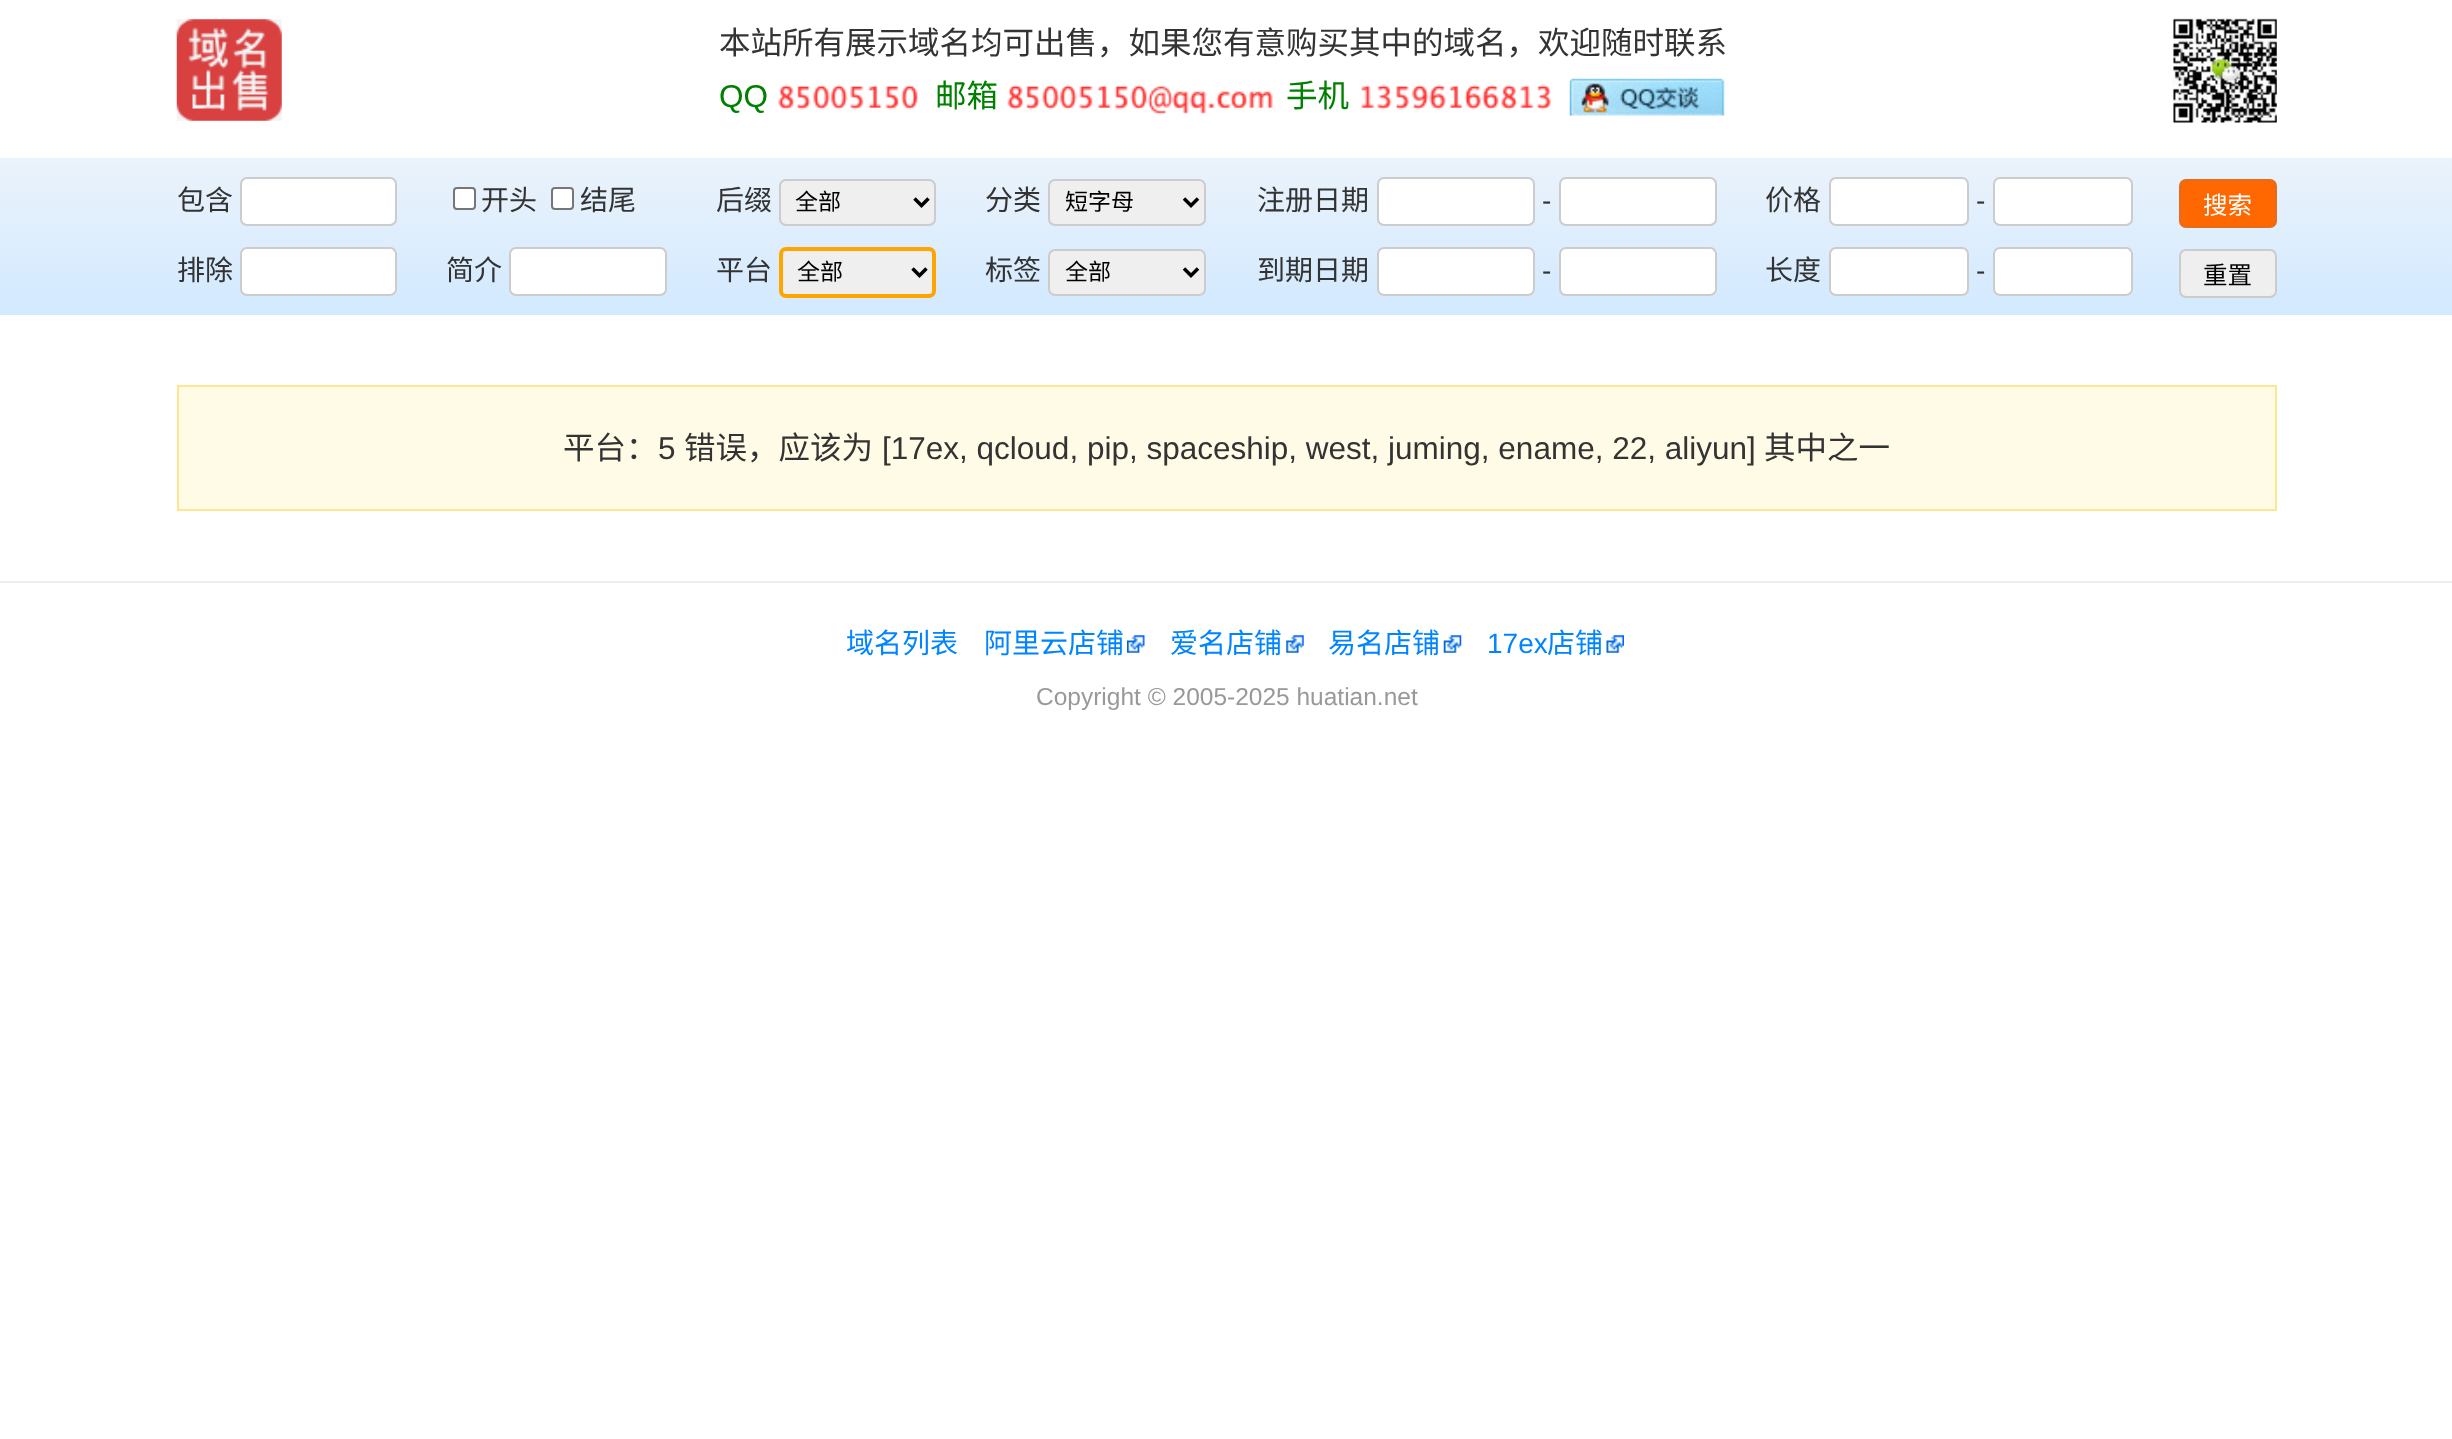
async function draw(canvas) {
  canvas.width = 2452;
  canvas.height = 1439;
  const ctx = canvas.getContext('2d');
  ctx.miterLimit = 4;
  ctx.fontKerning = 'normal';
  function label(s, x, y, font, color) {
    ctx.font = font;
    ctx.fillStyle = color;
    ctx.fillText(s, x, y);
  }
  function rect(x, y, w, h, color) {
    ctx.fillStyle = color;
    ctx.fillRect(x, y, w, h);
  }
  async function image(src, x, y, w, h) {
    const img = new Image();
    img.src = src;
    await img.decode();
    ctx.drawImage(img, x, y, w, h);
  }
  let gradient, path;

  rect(0, 0, 2452, 1439, '#fff');
  await image('assets/img1.png', 176, 19, 106, 102);
  label('本站所有展示域名均可出售，如果您有意购买其中的域名，欢迎随时联系', 719, 54, '31.5px Noto Sans CJK SC', '#333');
  await image('assets/img2.png', 2172, 17, 105, 106);
  label('QQ', 719, 107, '31.5px Liberation Sans', '#008000');
  await image('assets/img3.png', 778, 84, 140, 26);
  label('邮箱', 935, 107, '31.5px Noto Sans CJK SC', '#008000');
  await image('assets/img4.png', 1007, 84, 266, 30);
  label('手机', 1286, 107, '31.5px Noto Sans CJK SC', '#008000');
  await image('assets/img5.png', 1361, 84, 190, 26);
  await image('assets/img6.png', 1569, 78, 157, 38);
  gradient = ctx.createLinearGradient(1227, 157, 1227, 315);
  gradient.addColorStop(0, '#ebf3fb');
  gradient.addColorStop(1, '#d2e9ff');
  ctx.fillStyle = gradient;
  ctx.fillRect(0, 158, 2452, 157);
  label('包含', 177, 210, '28px Noto Sans CJK SC', '#333');
  ctx.fillStyle = '#fff';
  ctx.beginPath();
  ctx.roundRect(241, 178, 155, 47, 6);
  ctx.fill();
  ctx.strokeStyle = '#ccc';
  ctx.lineWidth = 2;
  ctx.stroke();
  ctx.beginPath();
  ctx.roundRect(454, 188, 21, 21, 3);
  ctx.fill();
  ctx.strokeStyle = '#767676';
  ctx.stroke();
  label('开头', 481, 210, '28px Noto Sans CJK SC', '#333');
  ctx.fillStyle = '#fff';
  ctx.beginPath();
  ctx.roundRect(552, 188, 21, 21, 3);
  ctx.fill();
  ctx.stroke();
  label('结尾', 580, 210, '28px Noto Sans CJK SC', '#333');
  label('后缀', 716, 210, '28px Noto Sans CJK SC', '#333');
  ctx.fillStyle = '#efefef';
  ctx.beginPath();
  ctx.roundRect(780, 180, 155, 45, 6);
  ctx.fill();
  ctx.strokeStyle = '#ccc';
  ctx.stroke();
  path = new Path2D('M914.5 198.5L921.5 205.5L928.5 198.5');
  ctx.strokeStyle = '#000';
  ctx.lineWidth = 3.5;
  ctx.stroke(path);
  label('全部', 795, 210, '23px Noto Sans CJK SC', '#000');
  label('分类', 985, 210, '28px Noto Sans CJK SC', '#333');
  ctx.fillStyle = '#efefef';
  ctx.beginPath();
  ctx.roundRect(1049, 180, 156, 45, 6);
  ctx.fill();
  ctx.strokeStyle = '#ccc';
  ctx.lineWidth = 2;
  ctx.stroke();
  path = new Path2D('M1184 198.5L1191 205.5L1198 198.5');
  ctx.strokeStyle = '#000';
  ctx.lineWidth = 3.5;
  ctx.stroke(path);
  label('短字母', 1065, 210, '23px Noto Sans CJK SC', '#000');
  label('注册日期', 1257, 210, '28px Noto Sans CJK SC', '#333');
  ctx.fillStyle = '#fff';
  ctx.beginPath();
  ctx.roundRect(1378, 178, 156, 47, 6);
  ctx.fill();
  ctx.strokeStyle = '#ccc';
  ctx.lineWidth = 2;
  ctx.stroke();
  label('-', 1542, 210, '28px Liberation Sans', '#333');
  ctx.fillStyle = '#fff';
  ctx.beginPath();
  ctx.roundRect(1560, 178, 156, 47, 6);
  ctx.fill();
  ctx.stroke();
  label('价格', 1765, 210, '28px Noto Sans CJK SC', '#333');
  ctx.fillStyle = '#fff';
  ctx.beginPath();
  ctx.roundRect(1830, 178, 138, 47, 6);
  ctx.fill();
  ctx.stroke();
  label('-', 1976, 210, '28px Liberation Sans', '#333');
  ctx.fillStyle = '#fff';
  ctx.beginPath();
  ctx.roundRect(1994, 178, 138, 47, 6);
  ctx.fill();
  ctx.stroke();
  ctx.fillStyle = '#ff6700';
  ctx.beginPath();
  ctx.roundRect(2180, 180, 96, 47, 6);
  ctx.fill();
  ctx.strokeStyle = '#e36d1f';
  ctx.stroke();
  label('搜索', 2203, 214, '24.5px Noto Sans CJK SC', '#fff');
  label('排除', 177, 280, '28px Noto Sans CJK SC', '#333');
  ctx.fillStyle = '#fff';
  ctx.beginPath();
  ctx.roundRect(241, 248, 155, 47, 6);
  ctx.fill();
  ctx.strokeStyle = '#ccc';
  ctx.stroke();
  label('简介', 446, 280, '28px Noto Sans CJK SC', '#333');
  ctx.fillStyle = '#fff';
  ctx.beginPath();
  ctx.roundRect(510, 248, 156, 47, 6);
  ctx.fill();
  ctx.stroke();
  label('平台', 716, 280, '28px Noto Sans CJK SC', '#333');
  ctx.fillStyle = '#efefef';
  ctx.beginPath();
  ctx.roundRect(781, 249, 153, 47, 5);
  ctx.fill();
  ctx.strokeStyle = '#ffa500';
  ctx.lineWidth = 4;
  ctx.stroke();
  path = new Path2D('M912.5 268.5L919.5 275.5L926.5 268.5');
  ctx.strokeStyle = '#000';
  ctx.lineWidth = 3.5;
  ctx.stroke(path);
  label('全部', 797, 280, '23px Noto Sans CJK SC', '#000');
  label('标签', 985, 280, '28px Noto Sans CJK SC', '#333');
  ctx.fillStyle = '#efefef';
  ctx.beginPath();
  ctx.roundRect(1049, 250, 156, 45, 6);
  ctx.fill();
  ctx.strokeStyle = '#ccc';
  ctx.lineWidth = 2;
  ctx.stroke();
  path = new Path2D('M1184 268.5L1191 275.5L1198 268.5');
  ctx.strokeStyle = '#000';
  ctx.lineWidth = 3.5;
  ctx.stroke(path);
  label('全部', 1065, 280, '23px Noto Sans CJK SC', '#000');
  label('到期日期', 1257, 280, '28px Noto Sans CJK SC', '#333');
  ctx.fillStyle = '#fff';
  ctx.beginPath();
  ctx.roundRect(1378, 248, 156, 47, 6);
  ctx.fill();
  ctx.strokeStyle = '#ccc';
  ctx.lineWidth = 2;
  ctx.stroke();
  label('-', 1542, 280, '28px Liberation Sans', '#333');
  ctx.fillStyle = '#fff';
  ctx.beginPath();
  ctx.roundRect(1560, 248, 156, 47, 6);
  ctx.fill();
  ctx.stroke();
  label('长度', 1765, 280, '28px Noto Sans CJK SC', '#333');
  ctx.fillStyle = '#fff';
  ctx.beginPath();
  ctx.roundRect(1830, 248, 138, 47, 6);
  ctx.fill();
  ctx.stroke();
  label('-', 1976, 280, '28px Liberation Sans', '#333');
  ctx.fillStyle = '#fff';
  ctx.beginPath();
  ctx.roundRect(1994, 248, 138, 47, 6);
  ctx.fill();
  ctx.stroke();
  ctx.fillStyle = '#efefef';
  ctx.beginPath();
  ctx.roundRect(2180, 250, 96, 47, 6);
  ctx.fill();
  ctx.stroke();
  label('重置', 2203, 284, '24.5px Noto Sans CJK SC', '#000');
  ctx.fillStyle = '#fffbe6';
  ctx.beginPath();
  ctx.rect(178, 386, 2098, 124);
  ctx.fill();
  ctx.strokeStyle = '#ffe58f';
  ctx.stroke();
  label('平台：', 563, 459, '31.5px Noto Sans CJK SC', '#333');
  label('5', 658, 459, '31.5px Liberation Sans', '#333');
  label('错误，应该为', 684, 459, '31.5px Noto Sans CJK SC', '#333');
  label('[17ex, qcloud, pip, spaceship, west, juming, ename, 22, aliyun]', 882, 459, '31.5px Liberation Sans', '#333');
  label('其中之一', 1764, 459, '31.5px Noto Sans CJK SC', '#333');
  rect(0, 581, 2452, 2, '#eee');
  label('域名列表', 846, 653, '28px Noto Sans CJK SC', '#0084ff');
  label('阿里云店铺', 984, 653, '28px Noto Sans CJK SC', '#0084ff');
  await image('assets/img7.png', 1127, 635, 18, 18);
  label('爱名店铺', 1170, 653, '28px Noto Sans CJK SC', '#0084ff');
  await image('assets/img8.png', 1286, 635, 18, 18);
  label('易名店铺', 1328, 653, '28px Noto Sans CJK SC', '#0084ff');
  await image('assets/img9.png', 1443, 635, 19, 18);
  label('17ex', 1487, 653, '28px Liberation Sans', '#0084ff');
  label('店铺', 1547, 653, '28px Noto Sans CJK SC', '#0084ff');
  await image('assets/img10.png', 1606, 635, 18, 18);
  label('Copyright © 2005-2025 huatian.net', 1036, 705, '24.5px Liberation Sans', '#999');
}

draw(document.querySelector('canvas'));
